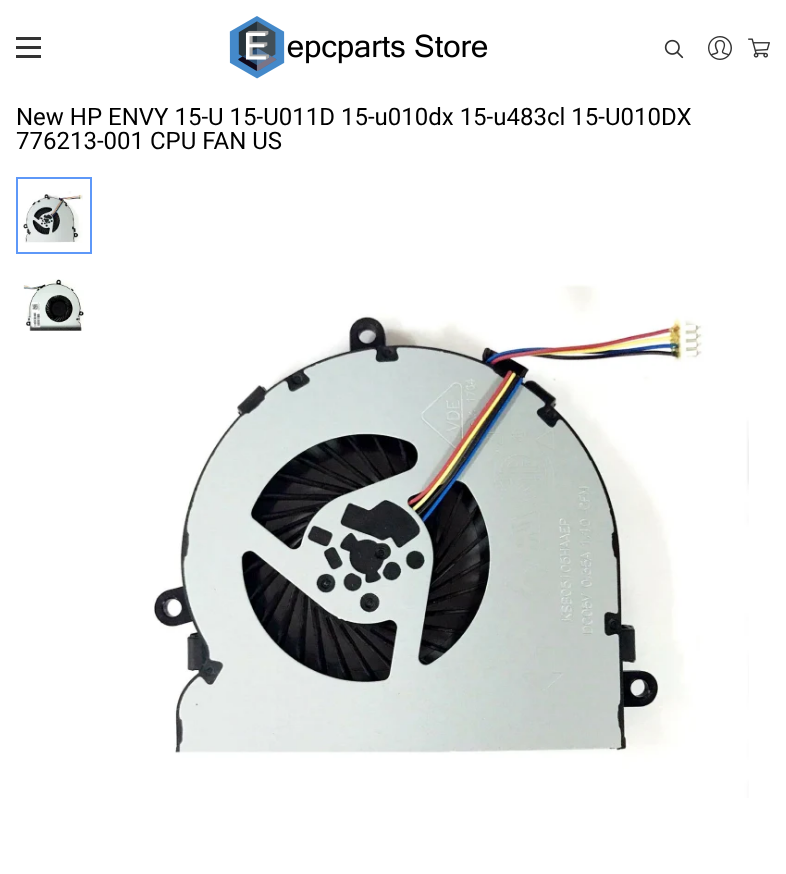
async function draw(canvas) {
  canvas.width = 786;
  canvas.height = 874;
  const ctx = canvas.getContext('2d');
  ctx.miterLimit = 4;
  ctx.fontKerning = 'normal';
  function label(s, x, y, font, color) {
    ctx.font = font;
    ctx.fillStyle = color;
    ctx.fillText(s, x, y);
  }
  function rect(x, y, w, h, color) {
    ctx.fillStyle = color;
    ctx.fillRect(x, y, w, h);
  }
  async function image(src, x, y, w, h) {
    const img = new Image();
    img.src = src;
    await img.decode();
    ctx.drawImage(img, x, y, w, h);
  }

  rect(0, 0, 786, 874, '#fff');
  rect(16, 37, 25, 3, '#333');
  rect(16, 46, 25, 3, '#333');
  rect(16, 55, 25, 3, '#333');
  await image('assets/img1.png', 229, 16, 259, 63);
  await image('assets/img2.png', 664, 39, 20, 20);
  await image('assets/img3.png', 708, 36, 24, 24);
  await image('assets/img4.png', 748, 38, 22, 20);
  label('New HP ENVY 15-U 15-U011D 15-u010dx 15-u483cl 15-U010DX', 16, 125, '24px Roboto', '#000');
  label('776213-001 CPU FAN US', 16, 149, '24px Roboto', '#000');
  ctx.strokeStyle = '#5e98f8';
  ctx.lineWidth = 2;
  ctx.strokeRect(17, 178, 74, 75);
  await image('assets/img5.png', 23, 191, 60, 52);
  await image('assets/img6.png', 23, 279, 61, 52);
  await image('assets/img7.png', 153, 284, 596, 514);
}

draw(document.querySelector('canvas'));
